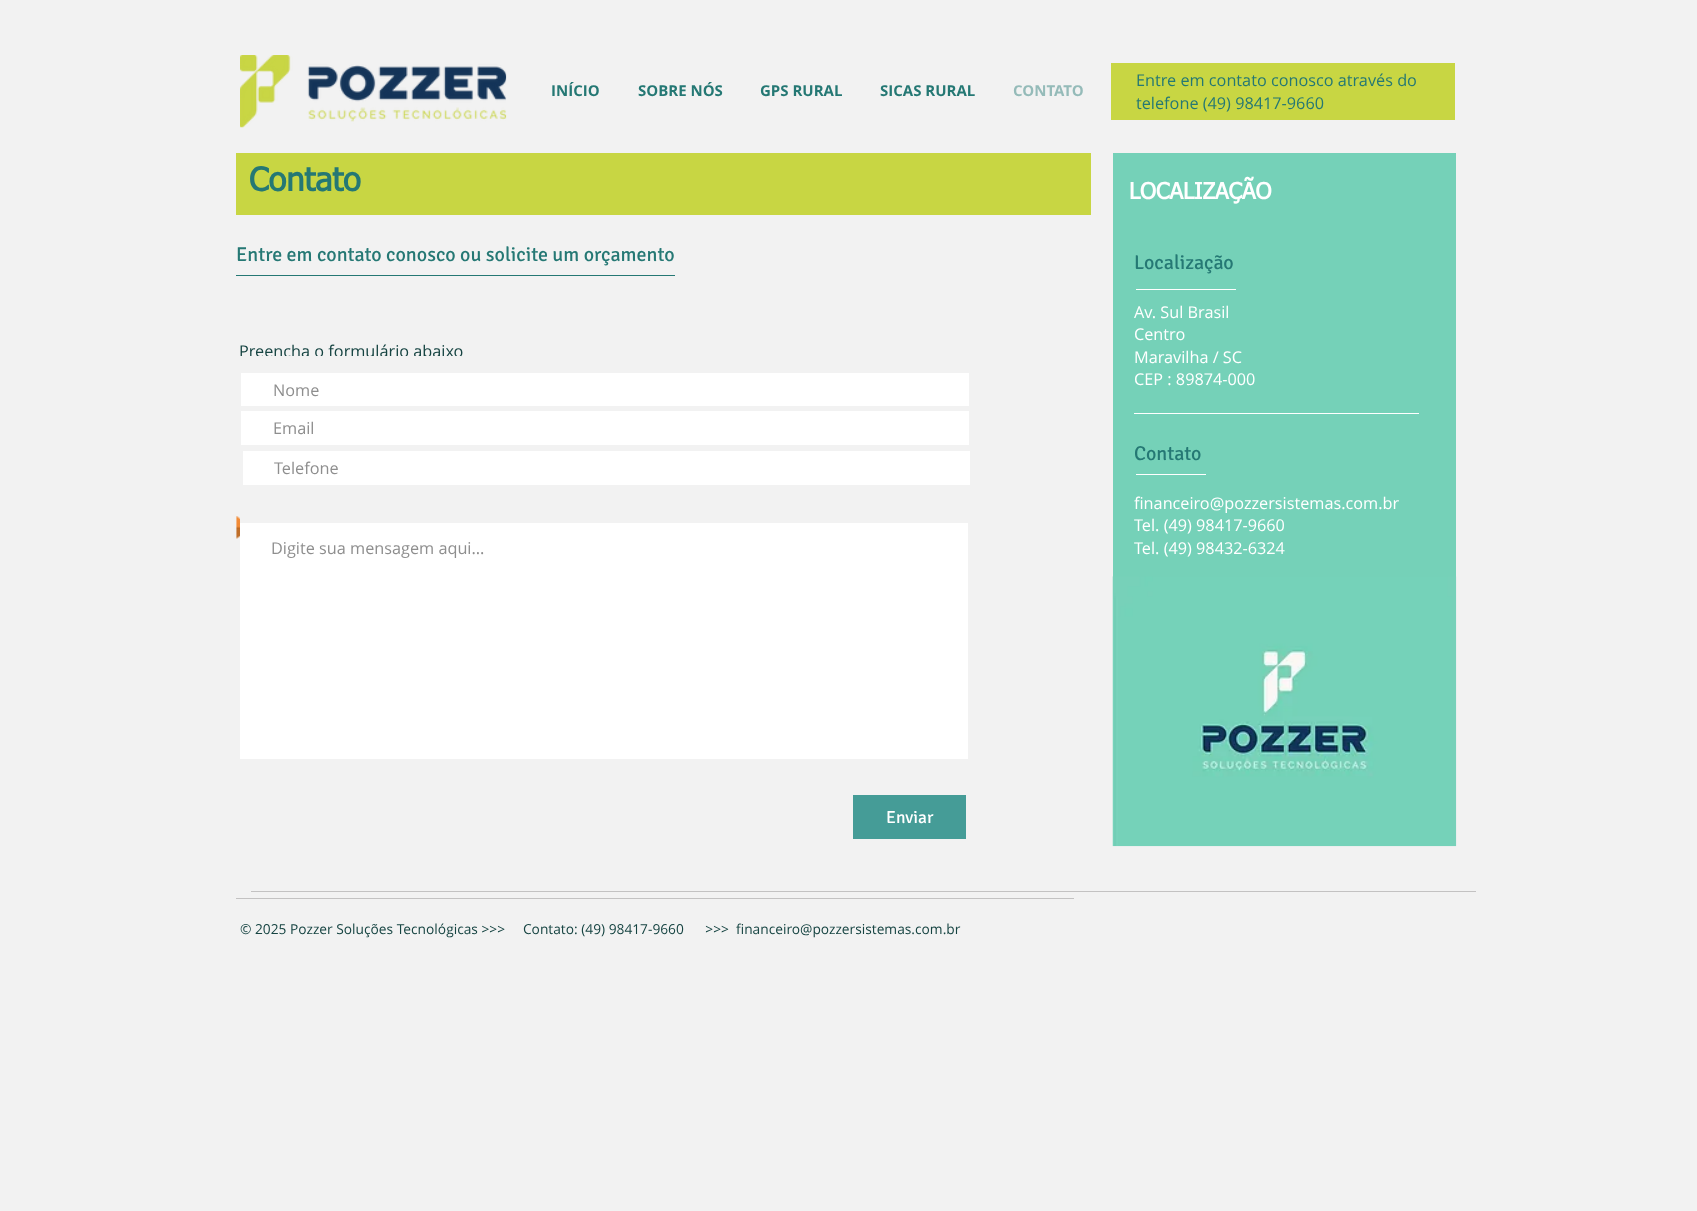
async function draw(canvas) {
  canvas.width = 1697;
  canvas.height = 1211;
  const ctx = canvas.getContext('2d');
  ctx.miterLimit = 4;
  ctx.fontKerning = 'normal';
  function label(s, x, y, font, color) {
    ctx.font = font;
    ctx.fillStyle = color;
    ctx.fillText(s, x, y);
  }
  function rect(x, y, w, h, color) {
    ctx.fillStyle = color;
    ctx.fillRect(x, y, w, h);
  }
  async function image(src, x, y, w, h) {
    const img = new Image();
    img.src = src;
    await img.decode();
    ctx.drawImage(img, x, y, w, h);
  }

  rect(0, 0, 1697, 1211, '#f2f2f2');
  await image('assets/img1.png', 240, 55, 267, 73);
  label('INÍCIO', 551, 96, 'bold 15px Open Sans', '#257874');
  label('SOBRE NÓS', 638, 96, 'bold 15px Open Sans', '#257874');
  label('GPS RURAL', 760, 96, 'bold 15px Open Sans', '#257874');
  label('SICAS RURAL', 880, 96, 'bold 15px Open Sans', '#257874');
  label('CONTATO', 1013, 96, 'bold 15px Open Sans', '#95bbb9');
  rect(1111, 63, 344, 57, '#c8d643');
  label('Entre em contato conosco através do', 1136, 86, '16.25px Open Sans', '#257874');
  label('telefone (49) 98417-9660', 1136, 109, '16.25px Open Sans', '#257874');
  rect(236, 153, 855, 62, '#c8d643');
  label('Contato', 249, 191, 'bold 32.5px tahoma', '#257874');
  rect(1113, 153, 343, 424, '#75d1b8');
  label('LOCALIZAÇÃO', 1129, 199, 'bold 22.5px tahoma', '#fff');
  label('Localização', 1134, 269, '20px Signika', '#257874');
  label('Av. Sul Brasil', 1134, 318, '16.25px Open Sans', '#fff');
  label('Centro', 1134, 340, '16.25px Open Sans', '#fff');
  label('Maravilha / SC', 1134, 363, '16.25px Open Sans', '#fff');
  label('CEP : 89874-000', 1134, 385, '16.25px Open Sans', '#fff');
  rect(1136, 289, 100, 1, '#fff');
  rect(1134, 413, 285, 1, '#fff');
  label('Contato', 1134, 460, '20px Signika', '#257874');
  label('financeiro@pozzersistemas.com.br', 1134, 509, '16.25px Open Sans', '#fff');
  label('Tel. (49) 98417-9660', 1134, 531, '16.25px Open Sans', '#fff');
  label('Tel. (49) 98432-6324', 1134, 554, '16.25px Open Sans', '#fff');
  rect(1136, 474, 70, 1, '#fff');
  await image('assets/img2.png', 1112, 576, 345, 271);
  label('Entre em contato conosco ou solicite um orçamento', 236, 261, '20px Signika', '#257874');
  rect(236, 275, 439, 1, '#257874');
  label('Preencha o formulário abaixo', 239, 357, '16.25px Open Sans', '#164442');
  await image('assets/img3.png', 236, 516, 4, 23);
  rect(240, 356, 221, 2, '#f2f2f2');
  rect(241, 373, 728, 33, '#fff');
  label('Nome', 273, 396, '16.25px Open Sans', '#8e8e8e');
  rect(241, 411, 728, 34, '#fff');
  label('Email', 273, 434, '16.25px Open Sans', '#8e8e8e');
  rect(243, 451, 727, 34, '#fff');
  label('Telefone', 274, 474, '16.25px Open Sans', '#8e8e8e');
  rect(240, 523, 728, 236, '#fff');
  label('Digite sua mensagem aqui...', 271, 554, '16.25px Open Sans', '#8e8e8e');
  rect(853, 795, 113, 44, '#459c97');
  label('Enviar', 886, 823, '17.5px Signika', '#fff');
  rect(251, 891, 1225, 1, '#c3c2c2');
  rect(236, 898, 838, 1, '#c3c2c2');
  label('© 2025 Pozzer Soluções Tecnológicas >>>     Contato: (49) 98417-9660      >>>', 240, 934, '13.75px Open Sans', '#164442');
  label('financeiro@pozzersistemas.com.br', 736, 934, '13.75px Open Sans', '#164442');
}

draw(document.querySelector('canvas'));
